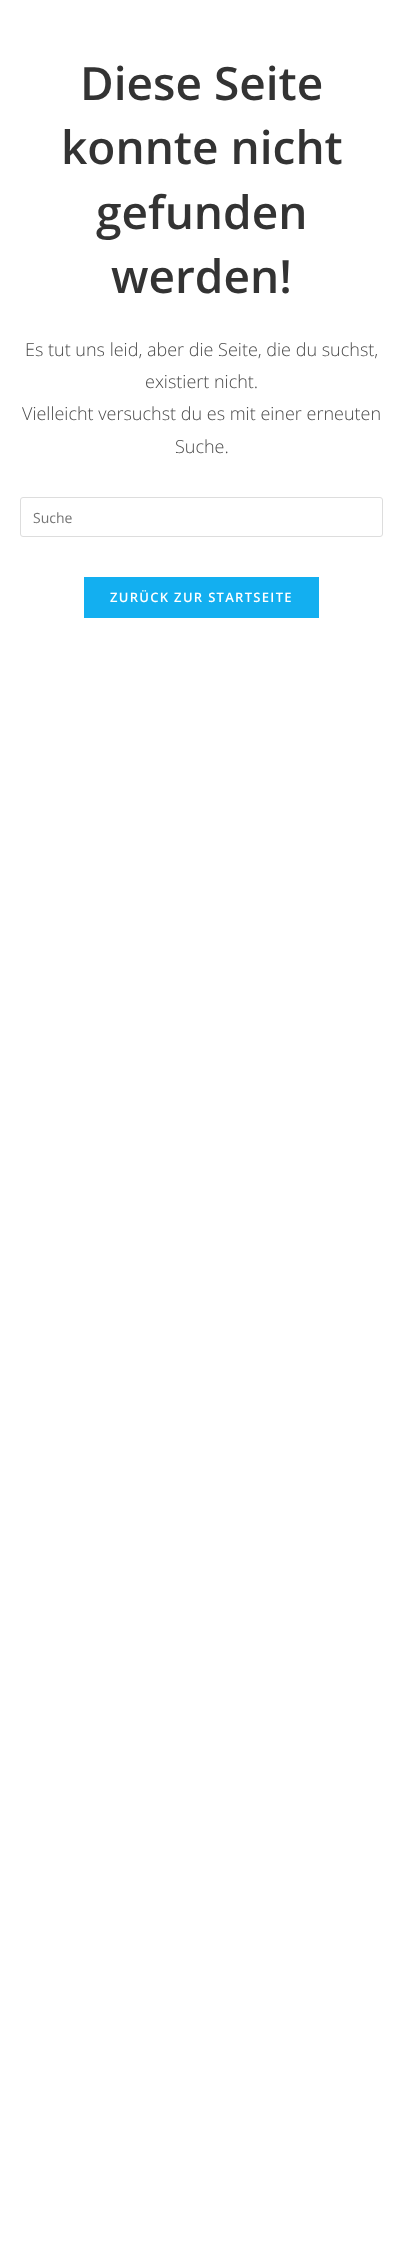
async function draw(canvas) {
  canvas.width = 403;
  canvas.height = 2268;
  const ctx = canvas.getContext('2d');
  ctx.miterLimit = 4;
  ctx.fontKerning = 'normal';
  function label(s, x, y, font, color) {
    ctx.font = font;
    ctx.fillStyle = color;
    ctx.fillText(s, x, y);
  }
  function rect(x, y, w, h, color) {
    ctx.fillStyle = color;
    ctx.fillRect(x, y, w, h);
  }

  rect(0, 0, 403, 2268, '#fff');
  label('Diese Seite', 80, 100, '600 46px Open Sans', '#333');
  label('konnte nicht', 61, 164, '600 46px Open Sans', '#333');
  label('gefunden', 96, 229, '600 46px Open Sans', '#333');
  label('werden!', 111, 293, '600 46px Open Sans', '#333');
  label('Es tut uns leid, aber die Seite, die du suchst,', 25, 356, '300 18px Open Sans', '#4a4a4a');
  label('existiert nicht.', 145, 388, '300 18px Open Sans', '#4a4a4a');
  label('Vielleicht versuchst du es mit einer erneuten', 22, 420, '300 18px Open Sans', '#4a4a4a');
  label('Suche.', 175, 453, '300 18px Open Sans', '#4a4a4a');
  ctx.beginPath();
  ctx.roundRect(20.5, 497.5, 362, 39, 2.5);
  ctx.strokeStyle = '#ddd';
  ctx.stroke();
  label('Suche', 33, 523, '14px Open Sans', '#757575');
  rect(84, 577, 235, 41, '#13aff0');
  ctx.letterSpacing = '1.3px';
  label('ZURÜCK ZUR STARTSEITE', 110, 602, '600 13px Open Sans', '#fff');
}

draw(document.querySelector('canvas'));
